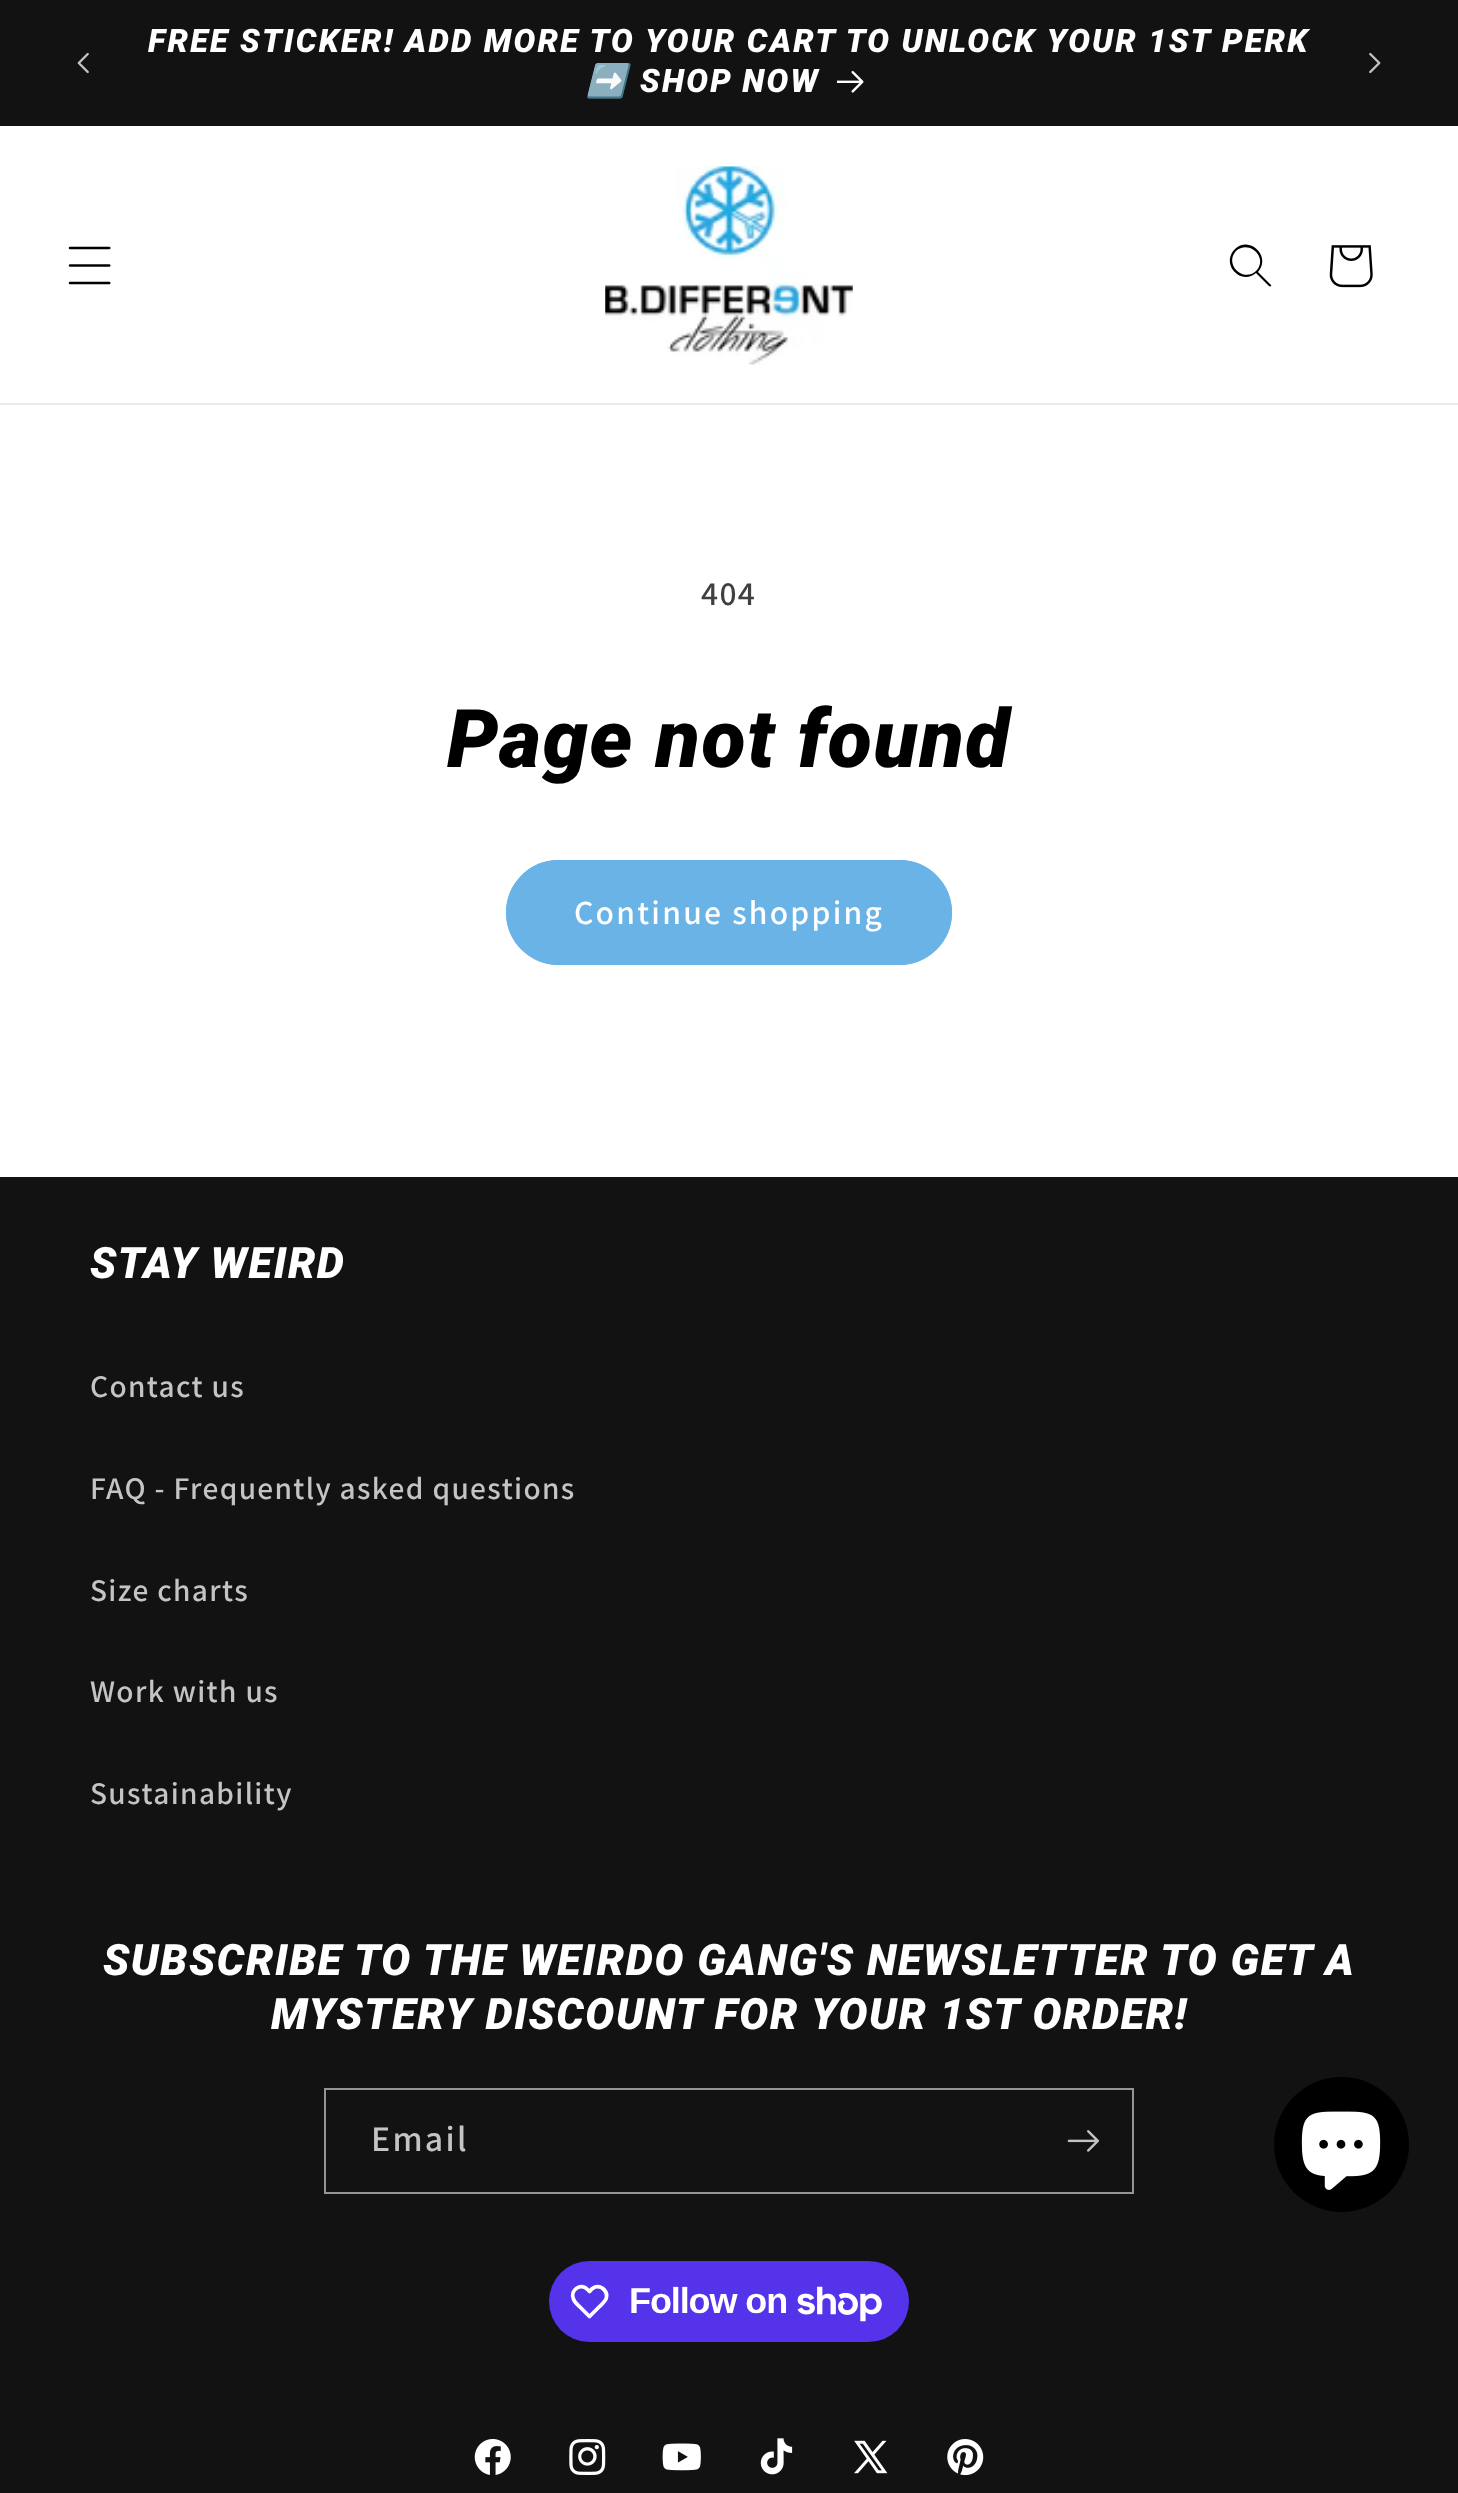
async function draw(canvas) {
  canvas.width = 1458;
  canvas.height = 2493;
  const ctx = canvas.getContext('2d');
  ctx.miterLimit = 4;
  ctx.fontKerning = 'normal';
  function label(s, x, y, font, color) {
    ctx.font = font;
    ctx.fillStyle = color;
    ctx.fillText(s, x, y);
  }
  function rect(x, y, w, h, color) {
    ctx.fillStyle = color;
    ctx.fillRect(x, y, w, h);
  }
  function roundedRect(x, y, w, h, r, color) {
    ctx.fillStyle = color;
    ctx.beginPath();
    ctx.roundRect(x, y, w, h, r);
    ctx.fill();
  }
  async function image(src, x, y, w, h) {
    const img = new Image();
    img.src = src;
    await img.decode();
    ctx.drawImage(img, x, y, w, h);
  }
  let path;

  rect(0, 0, 1458, 2493, '#fff');
  rect(0, 0, 1458, 126, '#121212');
  await image('assets/img1.png', 77, 52, 12, 22);
  ctx.letterSpacing = '2.25px';
  label('FREE STICKER! ADD MORE TO YOUR CART TO UNLOCK YOUR 1ST PERK', 148, 52, 'italic 900 32.4px Roboto', '#fff');
  label('➡️', 586, 92, 'italic bold 32.4px Noto Color Emoji', '#fff');
  ctx.wordSpacing = '-1px';
  label('SHOP NOW', 640, 92, 'italic 900 32.4px Roboto', '#fff');
  await image('assets/img2.png', 837, 71, 27, 22);
  await image('assets/img3.png', 1369, 52, 12, 22);
  rect(0, 403, 1458, 2, '#ebebeb');
  await image('assets/img4.png', 68, 246, 43, 39);
  await image('assets/img5.png', 605, 166, 248, 199);
  ctx.fillStyle = '#000';
  path = new Path2D('M1256 271C1243 283 1224 264 1236 251C1249 239 1269 258 1256 271M1256 273C1241 286 1220 264 1235 249C1249 235 1272 256 1258 272L1271 285C1272 286 1270 287 1269 286Z');
  ctx.fill(path, 'evenodd');
  await image('assets/img6.png', 1329, 245, 44, 43);
  ctx.letterSpacing = '1.35px';
  ctx.wordSpacing = '0px';
  label('404', 701, 605, '600 33.75px Assistant', '#404040');
  ctx.letterSpacing = '1.62px';
  label('Page not found', 447, 767, 'italic 900 81px Roboto', '#000');
  roundedRect(506, 860, 446, 105, 52.5, '#69b3e7');
  ctx.beginPath();
  ctx.roundRect(507, 861, 444, 103, 51.5);
  ctx.strokeStyle = '#69b3e7';
  ctx.lineWidth = 2;
  ctx.stroke();
  ctx.letterSpacing = '2.25px';
  label('Continue shopping', 574, 924, '600 33.75px Assistant', '#fff');
  rect(0, 1177, 1458, 1316, '#121212');
  ctx.letterSpacing = '1.62px';
  label('STAY WEIRD', 90, 1278, 'italic 900 43.2px Roboto', '#fff');
  ctx.letterSpacing = '1.35px';
  label('Contact us', 90, 1397, '600 31.5px Assistant', '#c4c4c4');
  label('FAQ - Frequently asked questions', 90, 1499, '600 31.5px Assistant', '#c4c4c4');
  label('Size charts', 90, 1601, '600 31.5px Assistant', '#c4c4c4');
  label('Work with us', 90, 1702, '600 31.5px Assistant', '#c4c4c4');
  label('Sustainability', 90, 1804, '600 31.5px Assistant', '#c4c4c4');
  ctx.letterSpacing = '1.62px';
  label('SUBSCRIBE TO THE WEIRDO GANG\'S NEWSLETTER TO GET A', 103, 1975, 'italic 900 43.2px Roboto', '#fff');
  label('MYSTERY DISCOUNT FOR YOUR 1ST ORDER!', 271, 2029, 'italic 900 43.2px Roboto', '#fff');
  ctx.strokeStyle = '#949494';
  ctx.strokeRect(325, 2089, 808, 104);
  ctx.letterSpacing = '2.25px';
  label('Email', 371, 2151, '600 36px Assistant', '#c4c4c4');
  await image('assets/img7.png', 1067, 2130, 32, 22);
  roundedRect(549, 2261, 360, 81, 40.5, '#5433eb');
  path = new Path2D('M587.5 2289.5L589.5 2291.5C591 2289.5 592.5 2288 595 2287C602 2285 608.5 2292 606 2299C604.5 2302 601.5 2304.5 599 2307L589.5 2316.5L580 2307C577.5 2304.5 574.5 2302.5 573.5 2299C569.5 2290 581 2282.5 587.5 2289.5Z');
  ctx.strokeStyle = '#fff';
  ctx.lineWidth = 3.8;
  ctx.lineJoin = 'round';
  ctx.stroke(path);
  ctx.letterSpacing = '-1.1px';
  label('Follow on', 629, 2313, 'bold 36px Liberation Sans', '#fff');
  await image('assets/img8.png', 797, 2286, 85, 36);
  await image('assets/img9.png', 474, 2439, 37, 36);
  await image('assets/img10.png', 569, 2439, 37, 36);
  await image('assets/img11.png', 662, 2443, 39, 28);
  await image('assets/img12.png', 760, 2438, 33, 37);
  await image('assets/img13.png', 854, 2440, 34, 34);
  await image('assets/img14.png', 947, 2439, 37, 37);
  ctx.fillStyle = '#000';
  ctx.beginPath();
  ctx.arc(1341.5, 2144.5, 67.5, 0, 2 * Math.PI);
  ctx.fill();
  await image('assets/img15.png', 1301, 2111, 80, 79);
}

draw(document.querySelector('canvas'));
